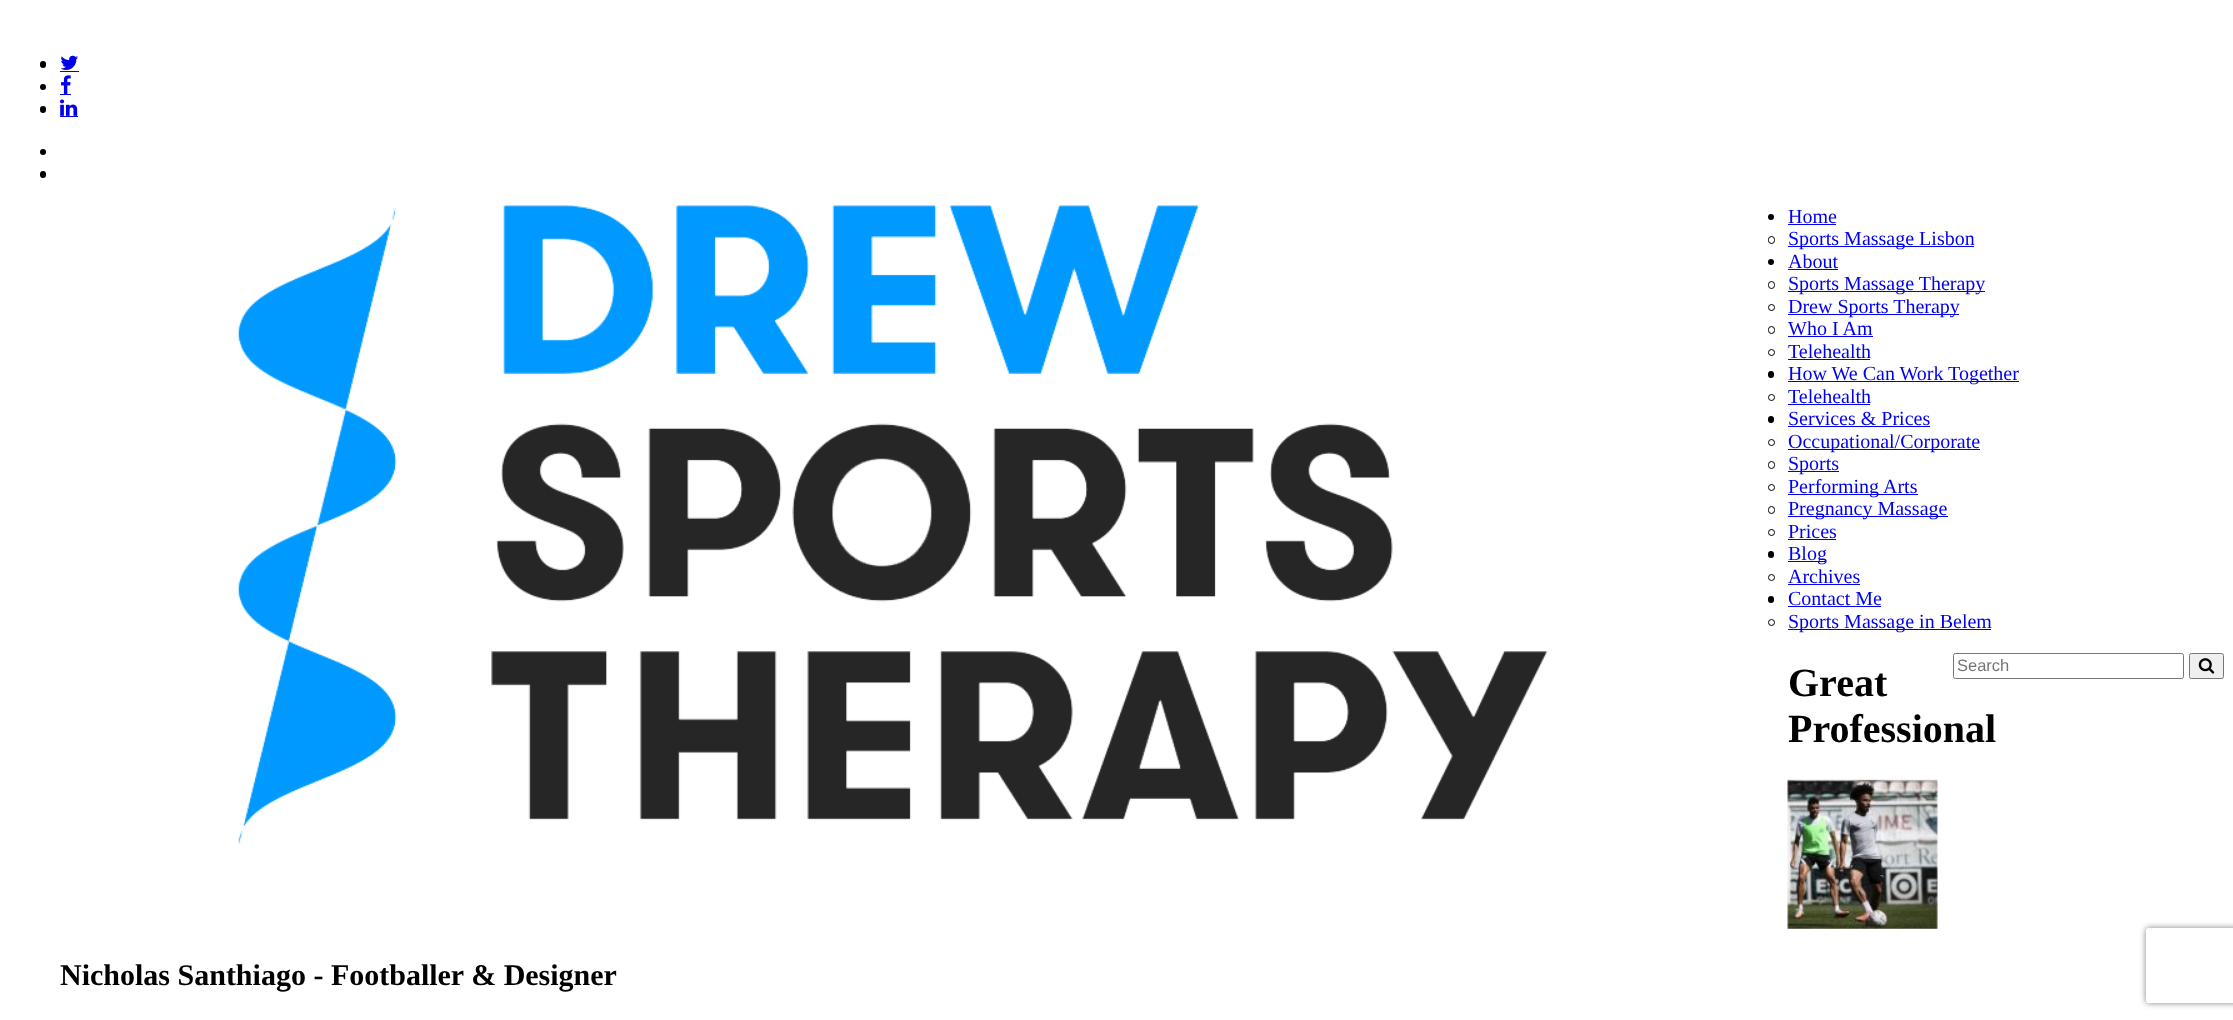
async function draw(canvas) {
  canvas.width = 2233;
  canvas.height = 1020;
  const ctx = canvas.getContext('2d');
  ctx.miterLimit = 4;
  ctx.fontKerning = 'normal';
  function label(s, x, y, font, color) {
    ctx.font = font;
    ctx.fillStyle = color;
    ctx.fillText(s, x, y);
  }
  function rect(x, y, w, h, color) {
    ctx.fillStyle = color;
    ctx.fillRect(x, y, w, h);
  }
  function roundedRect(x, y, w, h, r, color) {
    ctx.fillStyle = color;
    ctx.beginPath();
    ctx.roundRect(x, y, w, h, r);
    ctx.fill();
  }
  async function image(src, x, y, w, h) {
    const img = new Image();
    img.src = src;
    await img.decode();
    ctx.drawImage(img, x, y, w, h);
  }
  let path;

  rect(0, 0, 2233, 1020, '#fff');
  roundedRect(40, 61, 6, 7, 3, '#000');
  rect(60, 71, 19, 1, '#00e');
  await image('assets/img1.png', 60, 55, 18, 15);
  ctx.fillStyle = '#000';
  ctx.beginPath();
  ctx.arc(43, 87, 3, 0, 2 * Math.PI);
  ctx.fill();
  rect(60, 94, 11, 1, '#00e');
  await image('assets/img2.png', 61, 75, 10, 19);
  roundedRect(40, 106, 6, 7, 3, '#000');
  rect(60, 116, 18, 1, '#00e');
  await image('assets/img3.png', 60, 99, 18, 17);
  ctx.fillStyle = '#000';
  ctx.beginPath();
  ctx.arc(43, 152, 3, 0, 2 * Math.PI);
  ctx.fill();
  roundedRect(40, 171, 6, 7, 3, '#000');
  await image('assets/img4.png', 238, 205, 1310, 640);
  ctx.beginPath();
  ctx.arc(1771, 217, 3, 0, 2 * Math.PI);
  ctx.fill();
  label('Home', 1788, 223, '20px Liberation Serif', '#00e');
  rect(1788, 224, 48, 1, '#00e');
  ctx.beginPath();
  ctx.roundRect(1768.5, 236.5, 6, 7, 3);
  ctx.strokeStyle = '#000';
  ctx.stroke();
  rect(1788, 246, 186, 1, '#00e');
  label('Sports Massage Lisbon', 1788, 245, '20px Liberation Serif', '#00e');
  ctx.fillStyle = '#000';
  ctx.beginPath();
  ctx.arc(1771, 262, 3, 0, 2 * Math.PI);
  ctx.fill();
  label('About', 1788, 268, '20px Liberation Serif', '#00e');
  rect(1788, 269, 50, 1, '#00e');
  ctx.beginPath();
  ctx.roundRect(1768.5, 281.5, 6, 7, 3);
  ctx.stroke();
  rect(1788, 291, 197, 1, '#00e');
  label('Sports Massage Therapy', 1788, 290, '20px Liberation Serif', '#00e');
  ctx.beginPath();
  ctx.arc(1771.5, 307.5, 3, 0, 2 * Math.PI);
  ctx.stroke();
  rect(1788, 314, 171, 1, '#00e');
  label('Drew Sports Therapy', 1788, 313, '20px Liberation Serif', '#00e');
  ctx.beginPath();
  ctx.roundRect(1768.5, 326.5, 6, 7, 3);
  ctx.stroke();
  label('Who I Am', 1788, 335, '20px Liberation Serif', '#00e');
  rect(1788, 336, 85, 1, '#00e');
  ctx.beginPath();
  ctx.arc(1771.5, 352.5, 3, 0, 2 * Math.PI);
  ctx.stroke();
  label('Telehealth', 1788, 358, '20px Liberation Serif', '#00e');
  rect(1788, 359, 82, 1, '#00e');
  roundedRect(1768, 371, 6, 7, 3, '#000');
  rect(1788, 381, 231, 1, '#00e');
  label('How We Can Work Together', 1788, 380, '20px Liberation Serif', '#00e');
  ctx.beginPath();
  ctx.arc(1771.5, 397.5, 3, 0, 2 * Math.PI);
  ctx.stroke();
  label('Telehealth', 1788, 403, '20px Liberation Serif', '#00e');
  rect(1788, 404, 82, 1, '#00e');
  roundedRect(1768, 416, 6, 7, 3, '#000');
  label('Services & Prices', 1788, 425, '20px Liberation Serif', '#00e');
  rect(1788, 426, 142, 1, '#00e');
  ctx.beginPath();
  ctx.arc(1771.5, 442.5, 3, 0, 2 * Math.PI);
  ctx.stroke();
  rect(1788, 449, 192, 1, '#00e');
  label('Occupational/Corporate', 1788, 448, '20px Liberation Serif', '#00e');
  ctx.beginPath();
  ctx.roundRect(1768.5, 461.5, 6, 7, 3);
  ctx.stroke();
  rect(1788, 471, 51, 1, '#00e');
  label('Sports', 1788, 470, '20px Liberation Serif', '#00e');
  ctx.beginPath();
  ctx.arc(1771.5, 487.5, 3, 0, 2 * Math.PI);
  ctx.stroke();
  rect(1788, 494, 130, 1, '#00e');
  label('Performing Arts', 1788, 493, '20px Liberation Serif', '#00e');
  ctx.beginPath();
  ctx.roundRect(1768.5, 506.5, 6, 7, 3);
  ctx.stroke();
  rect(1788, 516, 160, 1, '#00e');
  label('Pregnancy Massage', 1788, 515, '20px Liberation Serif', '#00e');
  ctx.beginPath();
  ctx.arc(1771.5, 532.5, 3, 0, 2 * Math.PI);
  ctx.stroke();
  label('Prices', 1788, 538, '20px Liberation Serif', '#00e');
  rect(1788, 539, 48, 1, '#00e');
  roundedRect(1768, 551, 6, 7, 3, '#000');
  rect(1788, 561, 38, 1, '#00e');
  label('Blog', 1788, 560, '20px Liberation Serif', '#00e');
  ctx.beginPath();
  ctx.arc(1771.5, 577.5, 3, 0, 2 * Math.PI);
  ctx.stroke();
  label('Archives', 1788, 583, '20px Liberation Serif', '#00e');
  rect(1788, 584, 72, 1, '#00e');
  roundedRect(1768, 596, 6, 7, 3, '#000');
  label('Contact Me', 1788, 605, '20px Liberation Serif', '#00e');
  rect(1788, 606, 93, 1, '#00e');
  ctx.beginPath();
  ctx.arc(1771.5, 622.5, 3, 0, 2 * Math.PI);
  ctx.stroke();
  rect(1788, 629, 203, 1, '#00e');
  label('Sports Massage in Belem', 1788, 628, '20px Liberation Serif', '#00e');
  ctx.beginPath();
  ctx.roundRect(1953.5, 653.5, 230, 25, 2);
  ctx.strokeStyle = '#767676';
  ctx.stroke();
  label('Search', 1957, 671, '16.5px Liberation Sans', '#757575');
  ctx.fillStyle = '#efefef';
  ctx.beginPath();
  ctx.roundRect(2189.5, 653.5, 34, 25, 2);
  ctx.fill();
  ctx.stroke();
  await image('assets/img5.png', 2198, 658, 17, 16);
  label('Great', 1788, 696, 'bold 40px Liberation Serif', '#000');
  label('Professional', 1788, 742, 'bold 40px Liberation Serif', '#000');
  await image('assets/img6.png', 1787, 778, 151, 151);
  label('Nicholas Santhiago - Footballer & Designer', 60, 985, 'bold 30px Liberation Serif', '#000');
  ctx.save();
  path = new Path2D('M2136 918H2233V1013H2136ZM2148.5 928H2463.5C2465 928 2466 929 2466 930.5V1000.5C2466 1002 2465 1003 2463.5 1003H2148.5C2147 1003 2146 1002 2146 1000.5V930.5C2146 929 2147 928 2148.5 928Z');
  ctx.clip(path, 'evenodd');
  ctx.fillStyle = '#808080';
  ctx.filter = 'blur(3px)';
  ctx.beginPath();
  ctx.roundRect(2146, 928, 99, 75, 2.5);
  ctx.fill();
  ctx.filter = 'none';
  ctx.restore();
}

draw(document.querySelector('canvas'));
